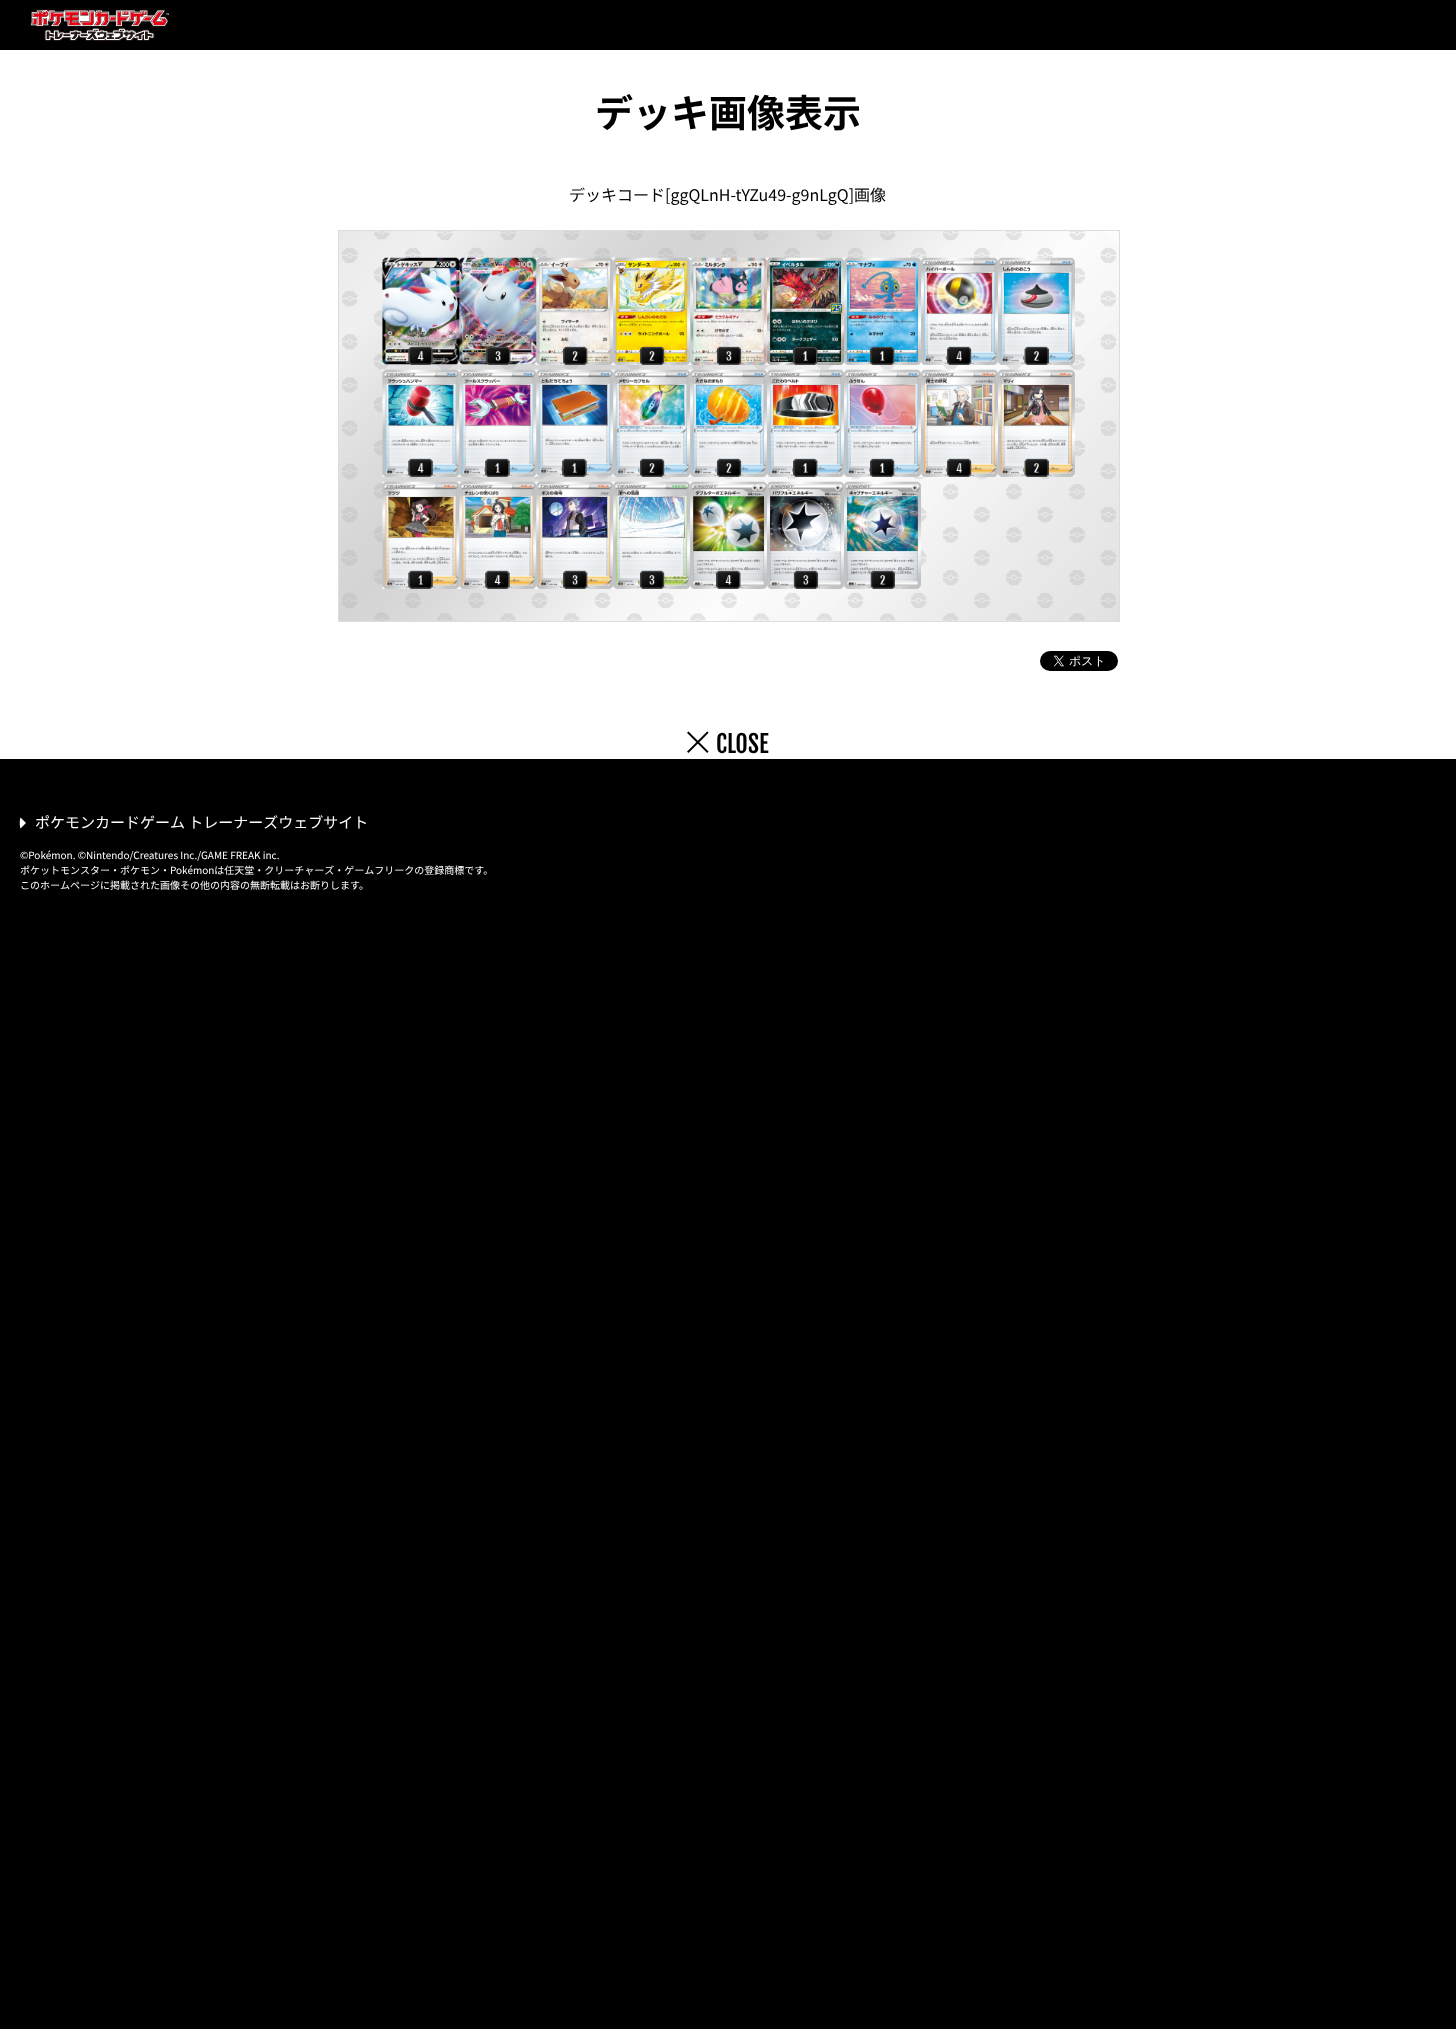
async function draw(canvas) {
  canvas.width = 1456;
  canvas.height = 2029;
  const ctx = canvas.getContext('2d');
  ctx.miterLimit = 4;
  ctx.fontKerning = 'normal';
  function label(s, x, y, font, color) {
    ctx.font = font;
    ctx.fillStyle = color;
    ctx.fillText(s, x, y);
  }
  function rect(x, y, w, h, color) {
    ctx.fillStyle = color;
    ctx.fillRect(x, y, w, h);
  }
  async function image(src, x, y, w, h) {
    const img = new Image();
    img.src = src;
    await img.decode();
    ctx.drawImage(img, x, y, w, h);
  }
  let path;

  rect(0, 0, 1456, 2029, '#000');
  rect(0, 50, 1456, 709, '#fff');
  await image('assets/img1.png', 30, 9, 139, 32);
  label('デッキ画像表示', 595, 127, 'bold 38px Noto Sans JP', '#000');
  label('デッキコード[ggQLnH-tYZu49-g9nLgQ]画像', 569, 201, '16px Noto Sans JP', '#000');
  rect(338, 230, 782, 392, '#ddd');
  await image('assets/img2.png', 339, 231, 780, 390);
  await image('assets/img3.png', 1040, 651, 78, 20);
  await image('assets/img4.png', 687, 731, 22, 22);
  label('CLOSE', 716, 753, '24px Fjalla One', '#000');
  ctx.fillStyle = '#fff';
  path = new Path2D('M26 823L20.5 828.5C19.5 827 19.5 819 20.5 817.5Z');
  ctx.fill(path);
  label('ポケモンカードゲーム トレーナーズウェブサイト', 35, 828, '15px Noto Sans JP', '#fff');
  label('©Pokémon. ©Nintendo/Creatures Inc./GAME FREAK inc.', 20, 859, '10px Noto Sans JP', '#fff');
  label('ポケットモンスター・ポケモン・Pokémonは任天堂・クリーチャーズ・ゲームフリークの登録商標です。', 20, 874, '10px Noto Sans JP', '#fff');
  label('このホームページに掲載された画像その他の内容の無断転載はお断りします。', 20, 889, '10px Noto Sans JP', '#fff');
}

draw(document.querySelector('canvas'));
